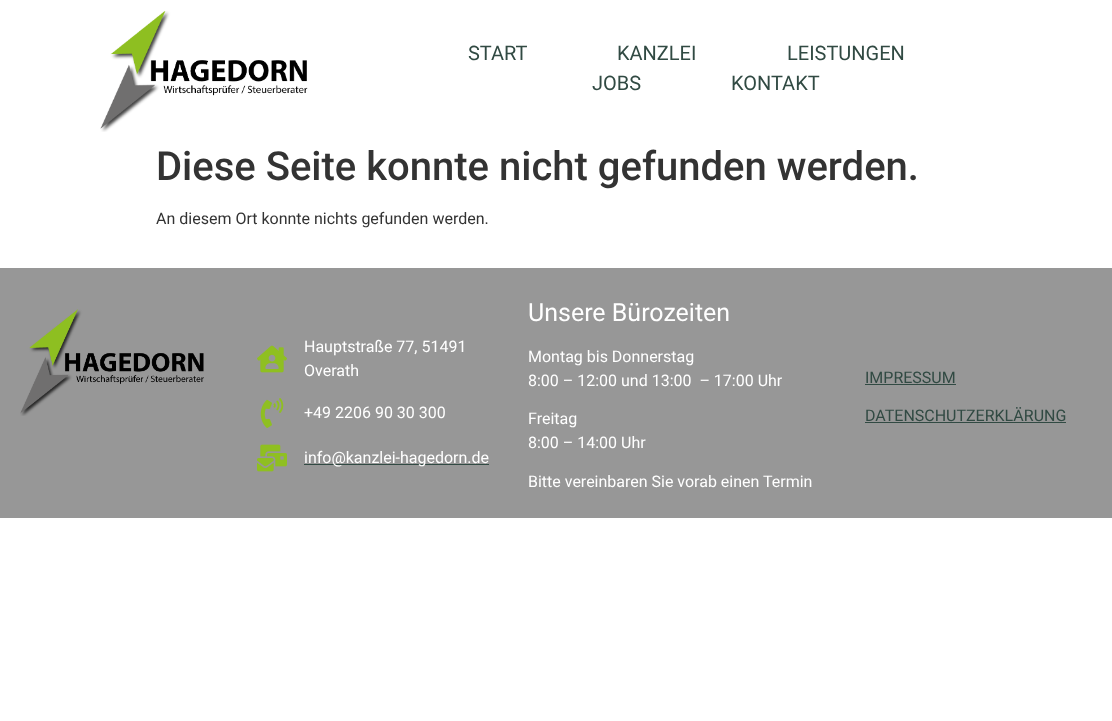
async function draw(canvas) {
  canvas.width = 1112;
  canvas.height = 721;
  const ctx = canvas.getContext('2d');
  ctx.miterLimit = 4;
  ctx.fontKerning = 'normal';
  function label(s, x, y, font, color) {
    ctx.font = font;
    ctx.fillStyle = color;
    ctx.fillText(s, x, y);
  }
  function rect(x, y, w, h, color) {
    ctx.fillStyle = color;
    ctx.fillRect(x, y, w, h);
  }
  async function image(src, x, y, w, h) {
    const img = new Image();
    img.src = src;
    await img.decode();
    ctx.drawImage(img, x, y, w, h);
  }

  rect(0, 0, 1112, 721, '#fff');
  await image('assets/img1.png', 100, 11, 208, 121);
  label('START', 468, 60, '20px "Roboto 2"', '#314a43');
  label('KANZLEI', 617, 60, '20px "Roboto 2"', '#314a43');
  label('LEISTUNGEN', 787, 60, '20px "Roboto 2"', '#314a43');
  label('JOBS', 592, 90, '20px "Roboto 2"', '#314a43');
  label('KONTAKT', 731, 90, '20px "Roboto 2"', '#314a43');
  label('Diese Seite konnte nicht gefunden werden.', 156, 180, '500 40px Roboto', '#333');
  label('An diesem Ort konnte nichts gefunden werden.', 156, 224, '16px Roboto', '#333');
  rect(0, 268, 1112, 250, '#979797');
  await image('assets/img2.png', 20, 309, 184, 107);
  await image('assets/img3.png', 257, 345, 30, 28);
  label('Hauptstraße 77, 51491', 304, 352, '16px "Roboto 2"', '#fff');
  label('Overath', 304, 376, '16px "Roboto 2"', '#fff');
  await image('assets/img4.png', 260, 398, 24, 30);
  label('+49 2206 90 30 300', 304, 418, '16px "Roboto 2"', '#fff');
  await image('assets/img5.png', 257, 444, 30, 28);
  rect(304, 464, 185, 1, '#314a43');
  label('info@kanzlei-hagedorn.de', 304, 463, '16px "Roboto 2"', '#fff');
  label('Unsere Bürozeiten', 528, 321, '25px "Roboto 2"', '#fff');
  label('Montag bis Donnerstag', 528, 362, '16px "Roboto 2"', '#fff');
  label('8:00 – 12:00 und 13:00  – 17:00 Uhr', 528, 386, '16px "Roboto 2"', '#fff');
  label('Freitag', 528, 424, '16px "Roboto 2"', '#fff');
  label('8:00 – 14:00 Uhr', 528, 448, '16px "Roboto 2"', '#fff');
  label('Bitte vereinbaren Sie vorab einen Termin', 528, 487, '16px "Roboto 2"', '#fff');
  label('IMPRESSUM', 865, 383, '16px "Roboto 2"', '#314a43');
  rect(865, 384, 91, 1, '#314a43');
  label('DATENSCHUTZERKLÄRUNG', 865, 421, '16px "Roboto 2"', '#314a43');
  rect(865, 422, 201, 1, '#314a43');
}

draw(document.querySelector('canvas'));
